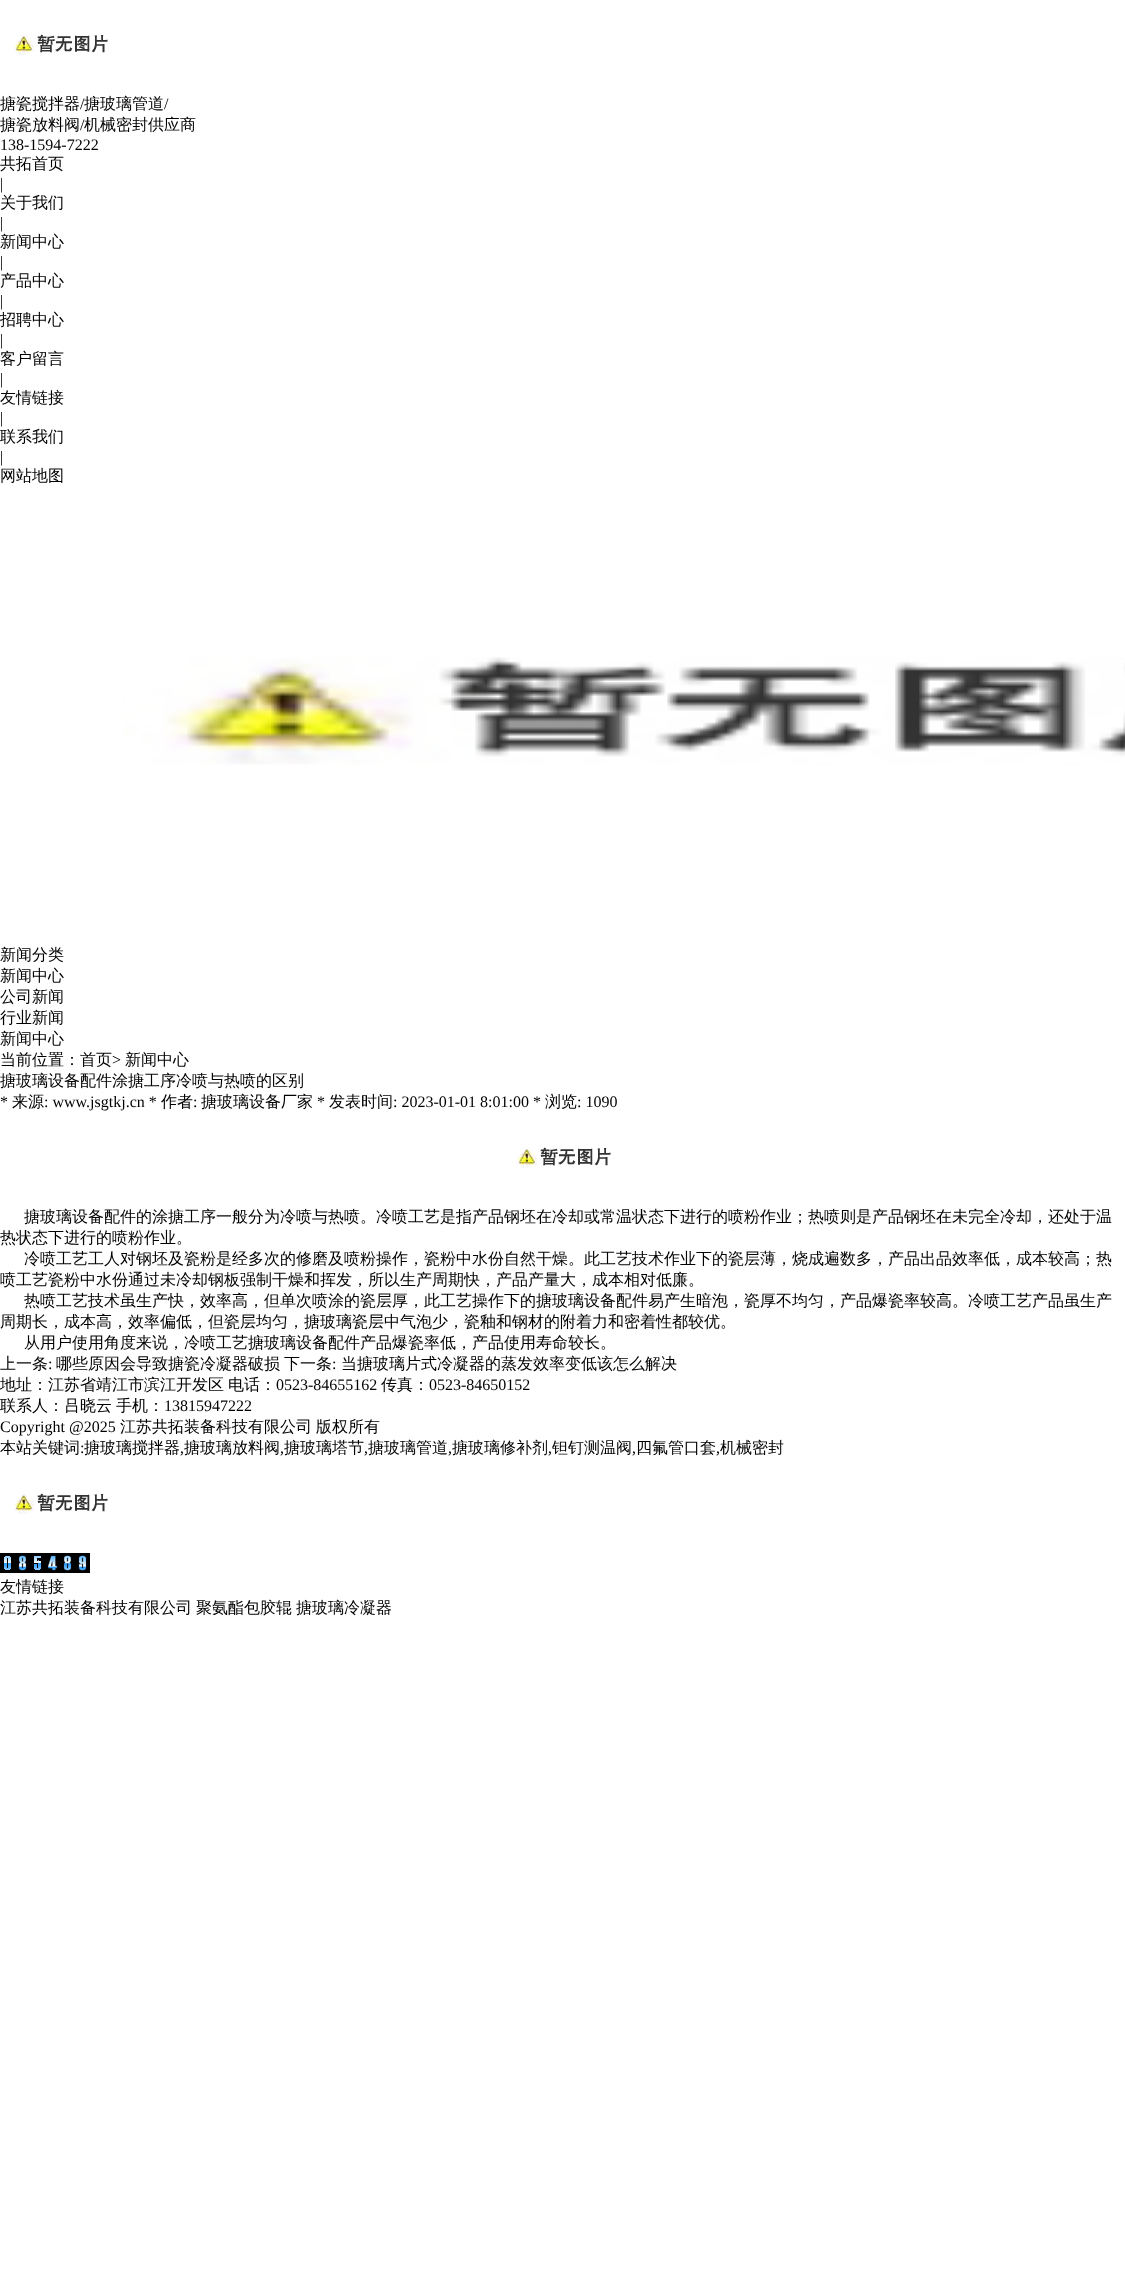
<svg xmlns="http://www.w3.org/2000/svg" width="1125" height="2292" viewBox="0 0 1125 2292">
  <rect width="100%" height="100%" fill="rgb(255,255,255)"/>
  <image x="10" y="34" width="98" height="21" href="pic1.png"/>
  <text x="0" y="109" font-family="WenQuanYi Zen Hei" font-size="16" font-weight="500" fill="rgb(0,0,0)">搪瓷搅拌器</text>
  <text x="80" y="109" font-family="Liberation Serif" font-size="16" fill="rgb(0,0,0)">/</text>
  <text x="84" y="109" font-family="WenQuanYi Zen Hei" font-size="16" font-weight="500" fill="rgb(0,0,0)">搪玻璃管道</text>
  <text x="164" y="109" font-family="Liberation Serif" font-size="16" fill="rgb(0,0,0)">/</text>
  <text x="0" y="130" font-family="WenQuanYi Zen Hei" font-size="16" font-weight="500" fill="rgb(0,0,0)">搪瓷放料阀</text>
  <text x="80" y="130" font-family="Liberation Serif" font-size="16" fill="rgb(0,0,0)">/</text>
  <text x="84" y="130" font-family="WenQuanYi Zen Hei" font-size="16" font-weight="500" fill="rgb(0,0,0)">机械密封供应商</text>
  <text x="0" y="150" font-family="Liberation Serif" font-size="16" fill="rgb(0,0,0)">138-1594-7222</text>
  <text x="0" y="169" font-family="WenQuanYi Zen Hei" font-size="16" font-weight="500" fill="rgb(0,0,0)">共拓首页</text>
  <text x="0" y="189" font-family="Liberation Serif" font-size="16" fill="rgb(0,0,0)">|</text>
  <text x="0" y="208" font-family="WenQuanYi Zen Hei" font-size="16" font-weight="500" fill="rgb(0,0,0)">关于我们</text>
  <text x="0" y="228" font-family="Liberation Serif" font-size="16" fill="rgb(0,0,0)">|</text>
  <text x="0" y="247" font-family="WenQuanYi Zen Hei" font-size="16" font-weight="500" fill="rgb(0,0,0)">新闻中心</text>
  <text x="0" y="267" font-family="Liberation Serif" font-size="16" fill="rgb(0,0,0)">|</text>
  <text x="0" y="286" font-family="WenQuanYi Zen Hei" font-size="16" font-weight="500" fill="rgb(0,0,0)">产品中心</text>
  <text x="0" y="306" font-family="Liberation Serif" font-size="16" fill="rgb(0,0,0)">|</text>
  <text x="0" y="325" font-family="WenQuanYi Zen Hei" font-size="16" font-weight="500" fill="rgb(0,0,0)">招聘中心</text>
  <text x="0" y="345" font-family="Liberation Serif" font-size="16" fill="rgb(0,0,0)">|</text>
  <text x="0" y="364" font-family="WenQuanYi Zen Hei" font-size="16" font-weight="500" fill="rgb(0,0,0)">客户留言</text>
  <text x="0" y="384" font-family="Liberation Serif" font-size="16" fill="rgb(0,0,0)">|</text>
  <text x="0" y="403" font-family="WenQuanYi Zen Hei" font-size="16" font-weight="500" fill="rgb(0,0,0)">友情链接</text>
  <text x="0" y="423" font-family="Liberation Serif" font-size="16" fill="rgb(0,0,0)">|</text>
  <text x="0" y="442" font-family="WenQuanYi Zen Hei" font-size="16" font-weight="500" fill="rgb(0,0,0)">联系我们</text>
  <text x="0" y="462" font-family="Liberation Serif" font-size="16" fill="rgb(0,0,0)">|</text>
  <text x="0" y="481" font-family="WenQuanYi Zen Hei" font-size="16" font-weight="500" fill="rgb(0,0,0)">网站地图</text>
  <image x="123" y="657" width="1002" height="108" href="pic2.png"/>
  <g font-family="WenQuanYi Zen Hei" font-size="16" font-weight="500" fill="rgb(0,0,0)">
    <text>
      <tspan x="0" y="960">新闻分类</tspan>
      <tspan x="0" y="981">新闻中心</tspan>
      <tspan x="0" y="1002">公司新闻</tspan>
      <tspan x="0" y="1023">行业新闻</tspan>
      <tspan x="0" y="1044">新闻中心</tspan>
      <tspan x="0" y="1065">当前位置：首页</tspan>
    </text>
  </g>
  <text x="112" y="1065" font-family="Liberation Serif" font-size="16" fill="rgb(0,0,0)">&gt;</text>
  <g font-family="WenQuanYi Zen Hei" font-size="16" font-weight="500" fill="rgb(0,0,0)">
    <text x="125" y="1065">新闻中心</text>
    <text x="0" y="1086">搪玻璃设备配件涂搪工序冷喷与热喷的区别</text>
  </g>
  <text x="0" y="1107" font-family="Liberation Serif" font-size="16" fill="rgb(0,0,0)">*</text>
  <text x="12" y="1107" font-family="WenQuanYi Zen Hei" font-size="16" font-weight="500" fill="rgb(0,0,0)">来源</text>
  <text x="44" y="1107" font-family="Liberation Serif" font-size="16" fill="rgb(0,0,0)">: www.jsgtkj.cn *</text>
  <text x="161" y="1107" font-family="WenQuanYi Zen Hei" font-size="16" font-weight="500" fill="rgb(0,0,0)">作者</text>
  <text x="193" y="1107" font-family="Liberation Serif" font-size="16" fill="rgb(0,0,0)">:</text>
  <text x="201" y="1107" font-family="WenQuanYi Zen Hei" font-size="16" font-weight="500" fill="rgb(0,0,0)">搪玻璃设备厂家</text>
  <text x="317" y="1107" font-family="Liberation Serif" font-size="16" fill="rgb(0,0,0)">*</text>
  <text x="329" y="1107" font-family="WenQuanYi Zen Hei" font-size="16" font-weight="500" fill="rgb(0,0,0)">发表时间</text>
  <text x="393" y="1107" font-family="Liberation Serif" font-size="16" fill="rgb(0,0,0)">: 2023-01-01 8:01:00 *</text>
  <text x="545" y="1107" font-family="WenQuanYi Zen Hei" font-size="16" font-weight="500" fill="rgb(0,0,0)">浏览</text>
  <text x="577" y="1107" font-family="Liberation Serif" font-size="16" fill="rgb(0,0,0)">: 1090</text>
  <image x="513" y="1147" width="98" height="21" href="pic1.png"/>
  <g font-family="WenQuanYi Zen Hei" font-size="16" font-weight="500" fill="rgb(0,0,0)">
    <text x="24" y="1222">搪玻璃设备配件的涂搪工序一般分为冷喷与热喷。冷喷工艺是指产品钢坯在冷却或常温状态下进行的喷粉作业；热喷则是产品钢坯在未完全冷却，还处于温</text>
    <text x="0" y="1243">热状态下进行的喷粉作业。</text>
    <text x="24" y="1264">冷喷工艺工人对钢坯及瓷粉是经多次的修磨及喷粉操作，瓷粉中水份自然干燥。此工艺技术作业下的瓷层薄，烧成遍数多，产品出品效率低，成本较高；热</text>
    <text x="0" y="1285">喷工艺瓷粉中水份通过未冷却钢板强制干燥和挥发，所以生产周期快，产品产量大，成本相对低廉。</text>
    <text x="24" y="1306">热喷工艺技术虽生产快，效率高，但单次喷涂的瓷层厚，此工艺操作下的搪玻璃设备配件易产生暗泡，瓷厚不均匀，产品爆瓷率较高。冷喷工艺产品虽生产</text>
    <text x="0" y="1327">周期长，成本高，效率偏低，但瓷层均匀，搪玻璃瓷层中气泡少，瓷釉和钢材的附着力和密着性都较优。</text>
    <text x="24" y="1348">从用户使用角度来说，冷喷工艺搪玻璃设备配件产品爆瓷率低，产品使用寿命较长。</text>
    <text x="0" y="1369">上一条</text>
  </g>
  <text x="48" y="1369" font-family="Liberation Serif" font-size="16" fill="rgb(0,0,0)">:</text>
  <g font-family="WenQuanYi Zen Hei" font-size="16" font-weight="500" fill="rgb(0,0,0)">
    <text x="56" y="1369">哪些原因会导致搪瓷冷凝器破损</text>
    <text x="284" y="1369">下一条</text>
  </g>
  <text x="332" y="1369" font-family="Liberation Serif" font-size="16" fill="rgb(0,0,0)">:</text>
  <g font-family="WenQuanYi Zen Hei" font-size="16" font-weight="500" fill="rgb(0,0,0)">
    <text x="341" y="1369">当搪玻璃片式冷凝器的蒸发效率变低该怎么解决</text>
    <text x="0" y="1390">地址：江苏省靖江市滨江开发区</text>
    <text x="228" y="1390">电话：</text>
  </g>
  <text x="276" y="1390" font-family="Liberation Serif" font-size="16" fill="rgb(0,0,0)">0523-84655162</text>
  <text x="381" y="1390" font-family="WenQuanYi Zen Hei" font-size="16" font-weight="500" fill="rgb(0,0,0)">传真：</text>
  <text x="429" y="1390" font-family="Liberation Serif" font-size="16" fill="rgb(0,0,0)">0523-84650152</text>
  <g font-family="WenQuanYi Zen Hei" font-size="16" font-weight="500" fill="rgb(0,0,0)">
    <text x="0" y="1411">联系人：吕晓云</text>
    <text x="116" y="1411">手机：</text>
  </g>
  <g font-family="Liberation Serif" font-size="16" fill="rgb(0,0,0)">
    <text x="164" y="1411">13815947222</text>
    <text x="0" y="1432">Copyright @2025</text>
  </g>
  <g font-family="WenQuanYi Zen Hei" font-size="16" font-weight="500" fill="rgb(0,0,0)">
    <text x="120" y="1432">江苏共拓装备科技有限公司</text>
    <text x="316" y="1432">版权所有</text>
    <text x="0" y="1453">本站关键词</text>
  </g>
  <text x="80" y="1453" font-family="Liberation Serif" font-size="16" fill="rgb(0,0,0)">:</text>
  <text x="84" y="1453" font-family="WenQuanYi Zen Hei" font-size="16" font-weight="500" fill="rgb(0,0,0)">搪玻璃搅拌器</text>
  <text x="180" y="1453" font-family="Liberation Serif" font-size="16" fill="rgb(0,0,0)">,</text>
  <text x="184" y="1453" font-family="WenQuanYi Zen Hei" font-size="16" font-weight="500" fill="rgb(0,0,0)">搪玻璃放料阀</text>
  <text x="280" y="1453" font-family="Liberation Serif" font-size="16" fill="rgb(0,0,0)">,</text>
  <text x="284" y="1453" font-family="WenQuanYi Zen Hei" font-size="16" font-weight="500" fill="rgb(0,0,0)">搪玻璃塔节</text>
  <text x="364" y="1453" font-family="Liberation Serif" font-size="16" fill="rgb(0,0,0)">,</text>
  <text x="368" y="1453" font-family="WenQuanYi Zen Hei" font-size="16" font-weight="500" fill="rgb(0,0,0)">搪玻璃管道</text>
  <text x="448" y="1453" font-family="Liberation Serif" font-size="16" fill="rgb(0,0,0)">,</text>
  <text x="452" y="1453" font-family="WenQuanYi Zen Hei" font-size="16" font-weight="500" fill="rgb(0,0,0)">搪玻璃修补剂</text>
  <text x="548" y="1453" font-family="Liberation Serif" font-size="16" fill="rgb(0,0,0)">,</text>
  <text x="552" y="1453" font-family="WenQuanYi Zen Hei" font-size="16" font-weight="500" fill="rgb(0,0,0)">钽钉测温阀</text>
  <text x="632" y="1453" font-family="Liberation Serif" font-size="16" fill="rgb(0,0,0)">,</text>
  <text x="636" y="1453" font-family="WenQuanYi Zen Hei" font-size="16" font-weight="500" fill="rgb(0,0,0)">四氟管口套</text>
  <text x="716" y="1453" font-family="Liberation Serif" font-size="16" fill="rgb(0,0,0)">,</text>
  <text x="720" y="1453" font-family="WenQuanYi Zen Hei" font-size="16" font-weight="500" fill="rgb(0,0,0)">机械密封</text>
  <image x="10" y="1493" width="98" height="21" href="pic1.png"/>
  <image x="0" y="1553" width="15" height="20" href="pic3.png"/>
  <image x="15" y="1553" width="15" height="20" href="pic4.png"/>
  <image x="30" y="1553" width="15" height="20" href="pic5.png"/>
  <image x="45" y="1553" width="15" height="20" href="pic6.png"/>
  <image x="60" y="1553" width="15" height="20" href="pic7.png"/>
  <image x="75" y="1553" width="15" height="20" href="pic8.png"/>
  <g font-family="WenQuanYi Zen Hei" font-size="16" font-weight="500" fill="rgb(0,0,0)">
    <text>
      <tspan x="0" y="1592">友情链接</tspan>
      <tspan x="0" y="1613">江苏共拓装备科技有限公司</tspan>
    </text>
    <text x="196" y="1613">聚氨酯包胶辊</text>
    <text x="296" y="1613">搪玻璃冷凝器</text>
  </g>
</svg>
